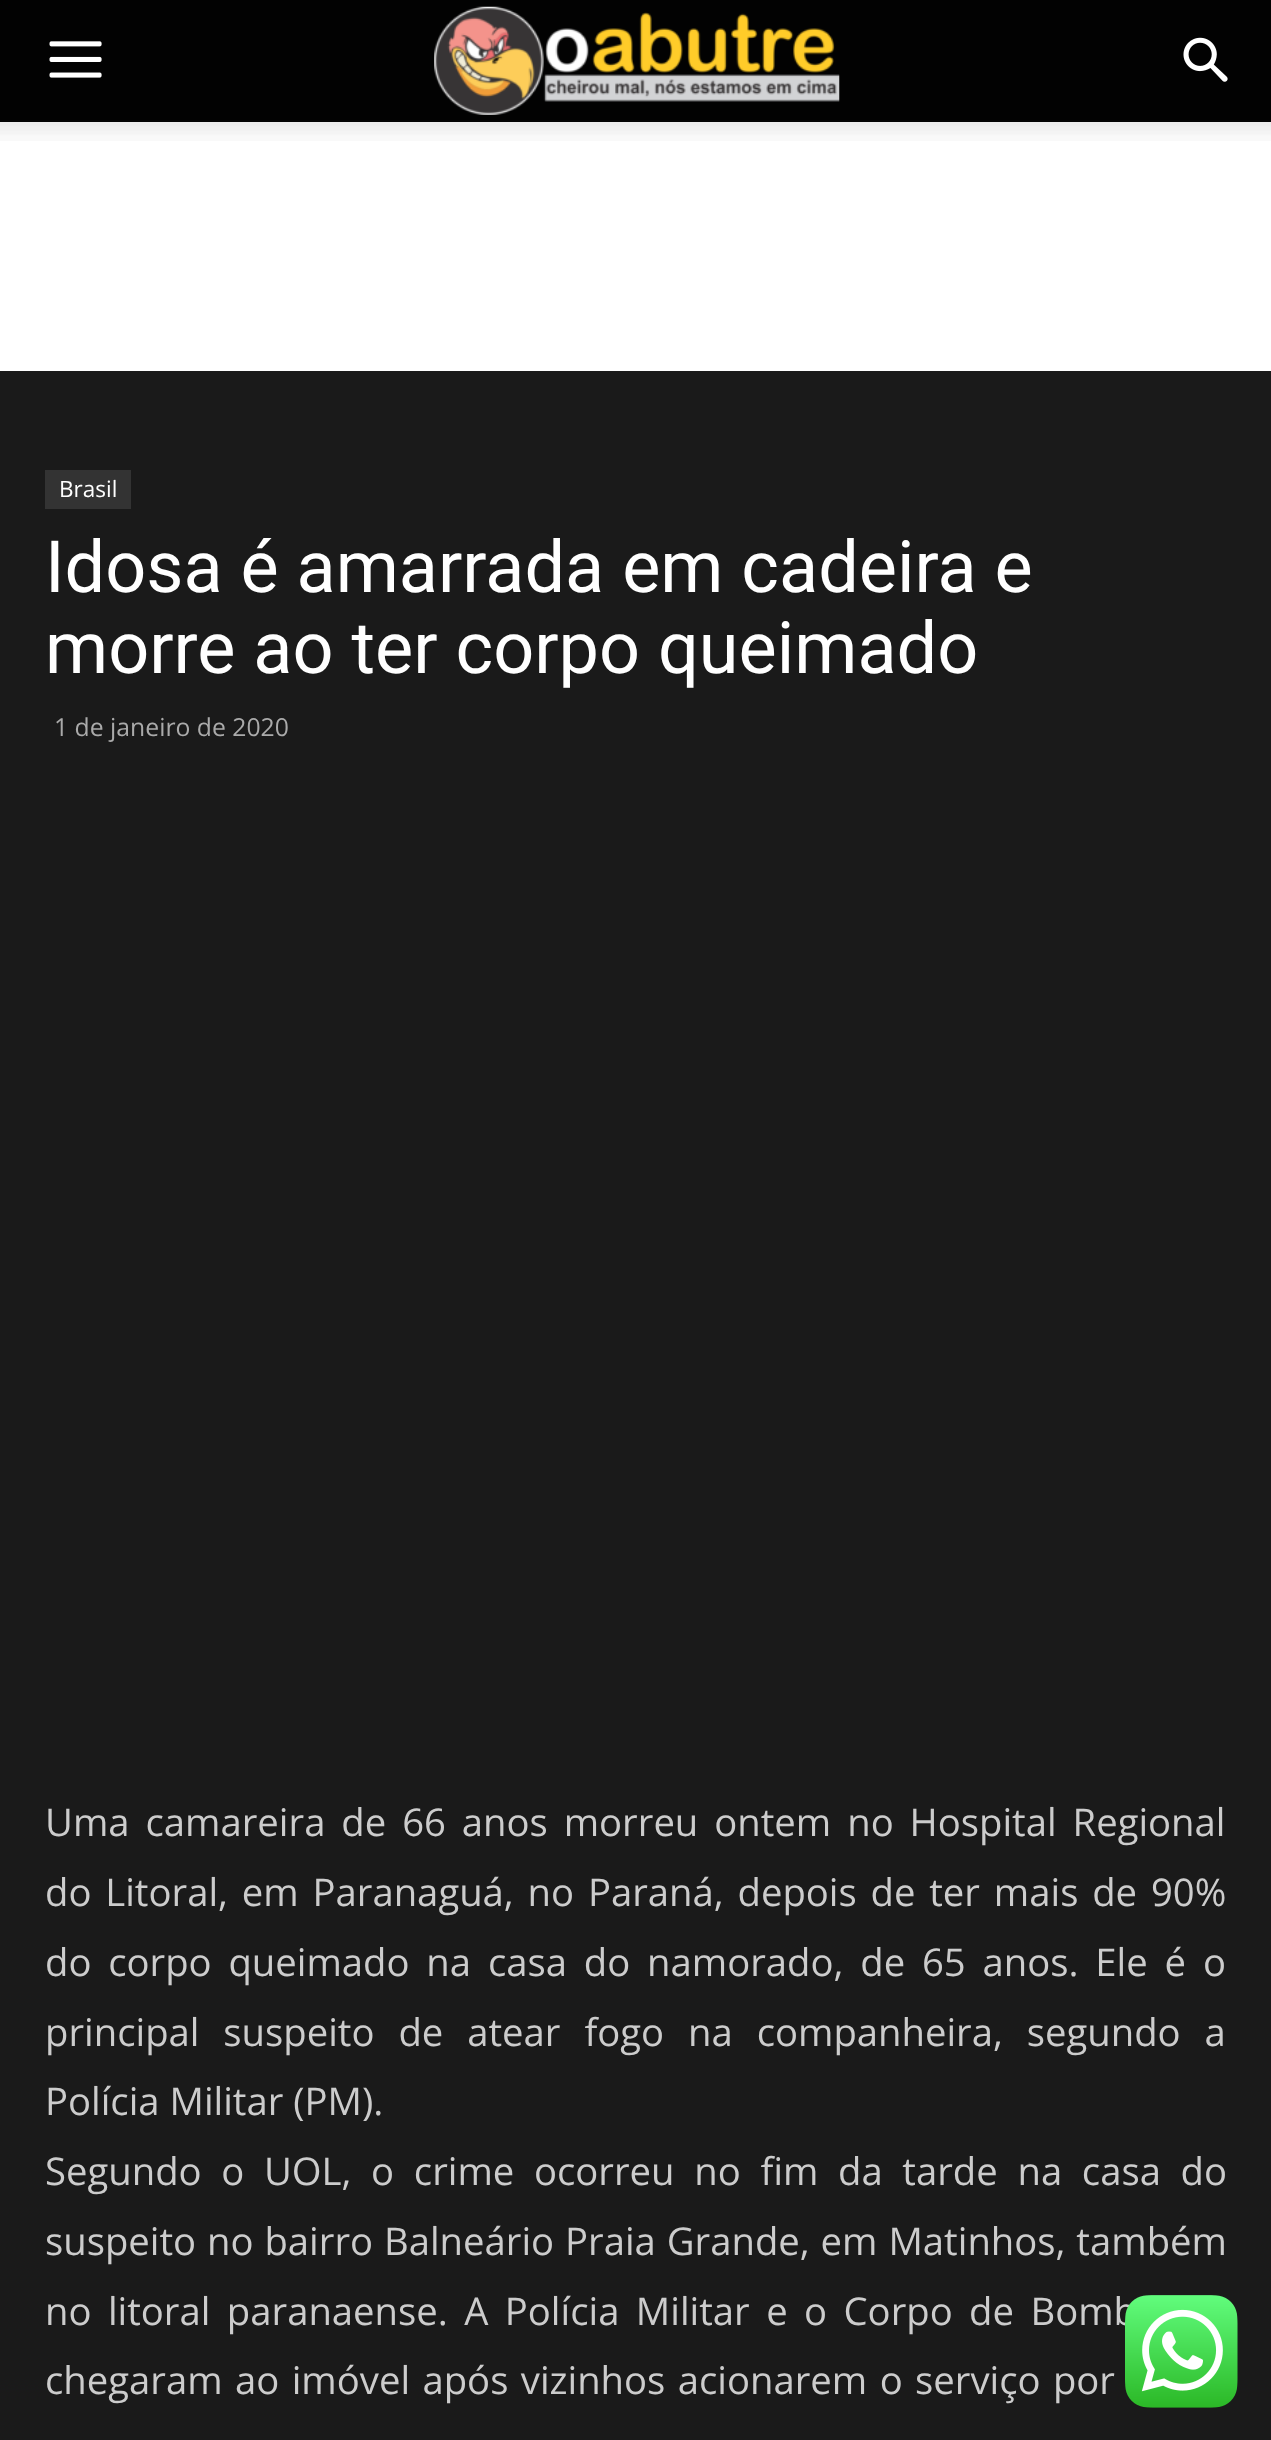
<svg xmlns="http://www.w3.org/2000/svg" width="1271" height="2440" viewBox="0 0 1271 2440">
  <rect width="100%" height="100%" fill="rgb(26,26,26)"/>
  <rect x="0" y="0" width="1271" height="122" fill="rgb(2,2,2)"/>
  <image x="49" y="41" width="53" height="37" href="pic1.png"/>
  <image x="434" y="6" width="406" height="109" href="pic2.png"/>
  <image x="1183" y="37" width="45" height="45" href="pic3.png"/>
  <rect x="0" y="122" width="1271" height="249" fill="rgb(255,255,255)"/>
  <image x="0" y="122" width="1271" height="19" href="pic4.png"/>
  <rect x="45" y="470" width="86" height="39" fill="rgb(51,51,51)"/>
  <text x="59" y="497" font-family="Open Sans" font-size="22.5" fill="rgb(255,255,255)">Brasil</text>
  <g font-family="Roboto" font-size="72" fill="rgb(255,255,255)">
    <text>
      <tspan x="45" y="592">Idosa é amarrada em cadeira e</tspan>
      <tspan x="45" y="673">morre ao ter corpo queimado</tspan>
    </text>
  </g>
  <text x="54" y="736" font-family="Open Sans" font-size="24.75" fill="rgb(170,170,170)">1 de janeiro de 2020</text>
  <g font-family="Open Sans" font-size="38.25" fill="rgb(204,204,204)">
    <text>
      <tspan x="45" y="1836" word-spacing="6">Uma camareira de 66 anos morreu ontem no Hospital Regional</tspan>
      <tspan x="45" y="1906" word-spacing="3.9">do Litoral, em Paranaguá, no Paraná, depois de ter mais de 90%</tspan>
      <tspan x="45" y="1976" word-spacing="6.9">do corpo queimado na casa do namorado, de 65 anos. Ele é o</tspan>
      <tspan x="45" y="2046" word-spacing="14">principal suspeito de atear fogo na companheira, segundo a</tspan>
      <tspan x="45" y="2115">Polícia Militar (PM).</tspan>
      <tspan x="45" y="2185" word-spacing="9.75">Segundo o UOL, o crime ocorreu no fim da tarde na casa do</tspan>
      <tspan x="45" y="2255" word-spacing="1">suspeito no bairro Balneário Praia Grande, em Matinhos, também</tspan>
      <tspan x="45" y="2325" word-spacing="6.5">no litoral paranaense. A Polícia Militar e o Corpo de Bomb</tspan>
      <tspan x="45" y="2394" word-spacing="2.5">chegaram ao imóvel após vizinhos acionarem o serviço por</tspan>
    </text>
  </g>
  <image x="1125" y="2295" width="113" height="113" href="pic5.png"/>
</svg>
